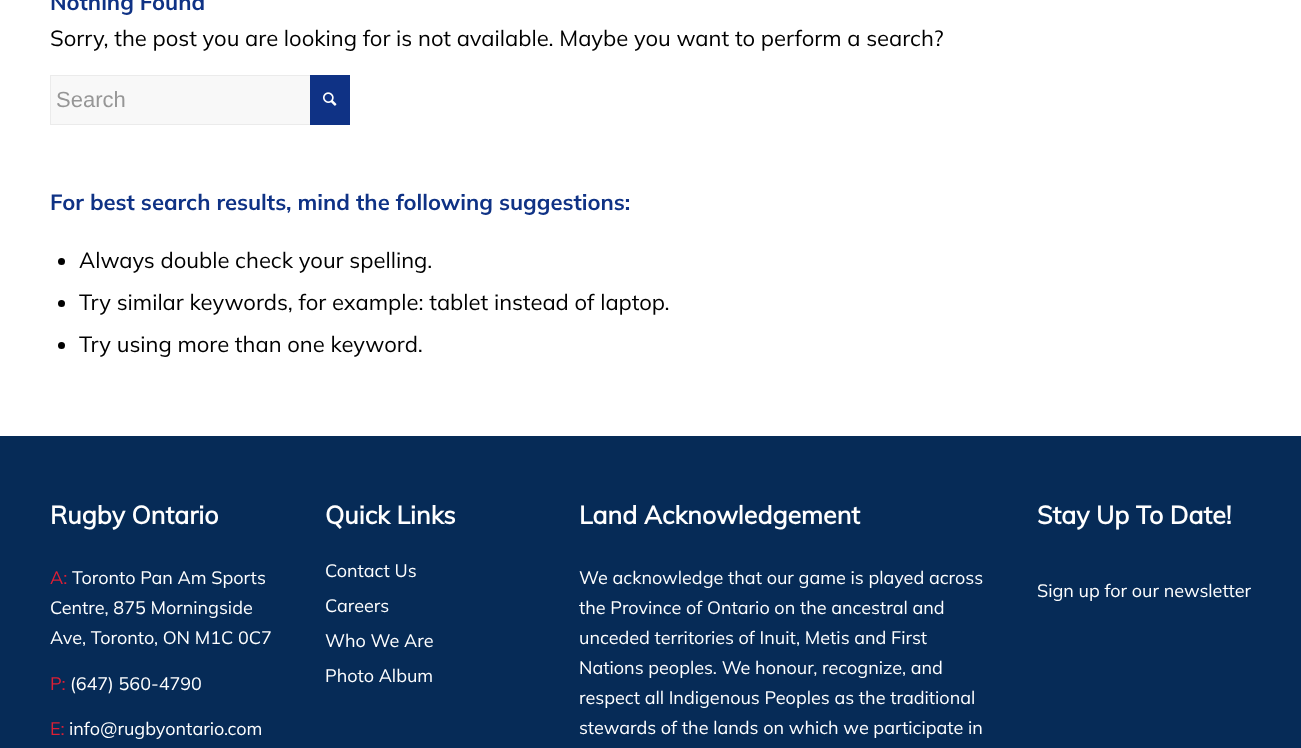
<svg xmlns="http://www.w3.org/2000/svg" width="1301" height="748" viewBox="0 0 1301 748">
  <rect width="100%" height="100%" fill="rgb(255,255,255)"/>
  <text x="50" y="10" font-family="Mulish" font-size="22" font-weight="bold" fill="rgb(15,50,133)">Nothing Found</text>
  <text x="50" y="46" font-family="Mulish" font-size="22" fill="rgb(0,0,0)">Sorry, the post you are looking for is not available. Maybe you want to perform a search?</text>
  <rect x="51" y="76" width="259" height="48" fill="rgb(248,248,248)"/>
  <rect x="50.5" y="75.5" width="299" height="49" fill="none" stroke="rgb(235,235,235)"/>
  <text x="56" y="107" font-family="Liberation Sans" font-size="22" fill="rgb(150,150,150)">Search</text>
  <rect x="310" y="75" width="40" height="50" fill="rgb(15,50,133)"/>
  <image x="323" y="92" width="14" height="14" href="pic1.png"/>
  <text x="50" y="210" font-family="Mulish" font-size="22" font-weight="bold" fill="rgb(15,50,133)">For best search results, mind the following suggestions:</text>
  <circle cx="61.5" cy="261.5" r="3.5" fill="rgb(0,0,0)"/>
  <text x="79" y="268" font-family="Mulish" font-size="22" fill="rgb(0,0,0)">Always double check your spelling.</text>
  <circle cx="61.5" cy="303.5" r="3.5" fill="rgb(0,0,0)"/>
  <text x="79" y="310" font-family="Mulish" font-size="22" fill="rgb(0,0,0)">Try similar keywords, for example: tablet instead of laptop.</text>
  <circle cx="61.5" cy="345.5" r="3.5" fill="rgb(0,0,0)"/>
  <text x="79" y="352" font-family="Mulish" font-size="22" fill="rgb(0,0,0)">Try using more than one keyword.</text>
  <rect x="0" y="436" width="1301" height="312" fill="rgb(6,43,87)"/>
  <text x="50" y="524" font-family="Muli" font-size="25" font-weight="bold" fill="rgb(255,255,255)">Rugby Ontario</text>
  <text x="50" y="584" font-family="Mulish" font-size="18" fill="rgb(220,31,53)">A:</text>
  <g font-family="Mulish" font-size="18" fill="rgb(255,255,255)">
    <text x="72" y="584">Toronto Pan Am Sports</text>
    <text>
      <tspan x="50" y="614">Centre, 875 Morningside</tspan>
      <tspan x="50" y="644">Ave, Toronto, ON M1C 0C7</tspan>
    </text>
  </g>
  <text x="50" y="690" font-family="Mulish" font-size="18" fill="rgb(220,31,53)">P:</text>
  <text x="70" y="690" font-family="Mulish" font-size="18" fill="rgb(255,255,255)">(647) 560-4790</text>
  <text x="50" y="735" font-family="Mulish" font-size="18" fill="rgb(220,31,53)">E:</text>
  <text x="69" y="735" font-family="Mulish" font-size="18" fill="rgb(255,255,255)">info@rugbyontario.com</text>
  <text x="325" y="524" font-family="Muli" font-size="25" font-weight="bold" fill="rgb(255,255,255)">Quick Links</text>
  <g font-family="Mulish" font-size="18" fill="rgb(255,255,255)">
    <text>
      <tspan x="325" y="577">Contact Us</tspan>
      <tspan x="325" y="612">Careers</tspan>
      <tspan x="325" y="647">Who We Are</tspan>
      <tspan x="325" y="682">Photo Album</tspan>
    </text>
  </g>
  <text x="579" y="524" font-family="Muli" font-size="25" font-weight="bold" fill="rgb(255,255,255)">Land Acknowledgement</text>
  <g font-family="Mulish" font-size="18" fill="rgb(255,255,255)">
    <text>
      <tspan x="579" y="584">We acknowledge that our game is played across</tspan>
      <tspan x="579" y="614">the Province of Ontario on the ancestral and</tspan>
      <tspan x="579" y="644">unceded territories of Inuit, Metis and First</tspan>
      <tspan x="579" y="674">Nations peoples. We honour, recognize, and</tspan>
      <tspan x="579" y="704">respect all Indigenous Peoples as the traditional</tspan>
      <tspan x="579" y="734">stewards of the lands on which we participate in</tspan>
    </text>
  </g>
  <text x="1037" y="524" font-family="Muli" font-size="25" font-weight="bold" fill="rgb(255,255,255)">Stay Up To Date!</text>
  <text x="1037" y="597" font-family="Mulish" font-size="18" fill="rgb(255,255,255)">Sign up for our newsletter</text>
</svg>
